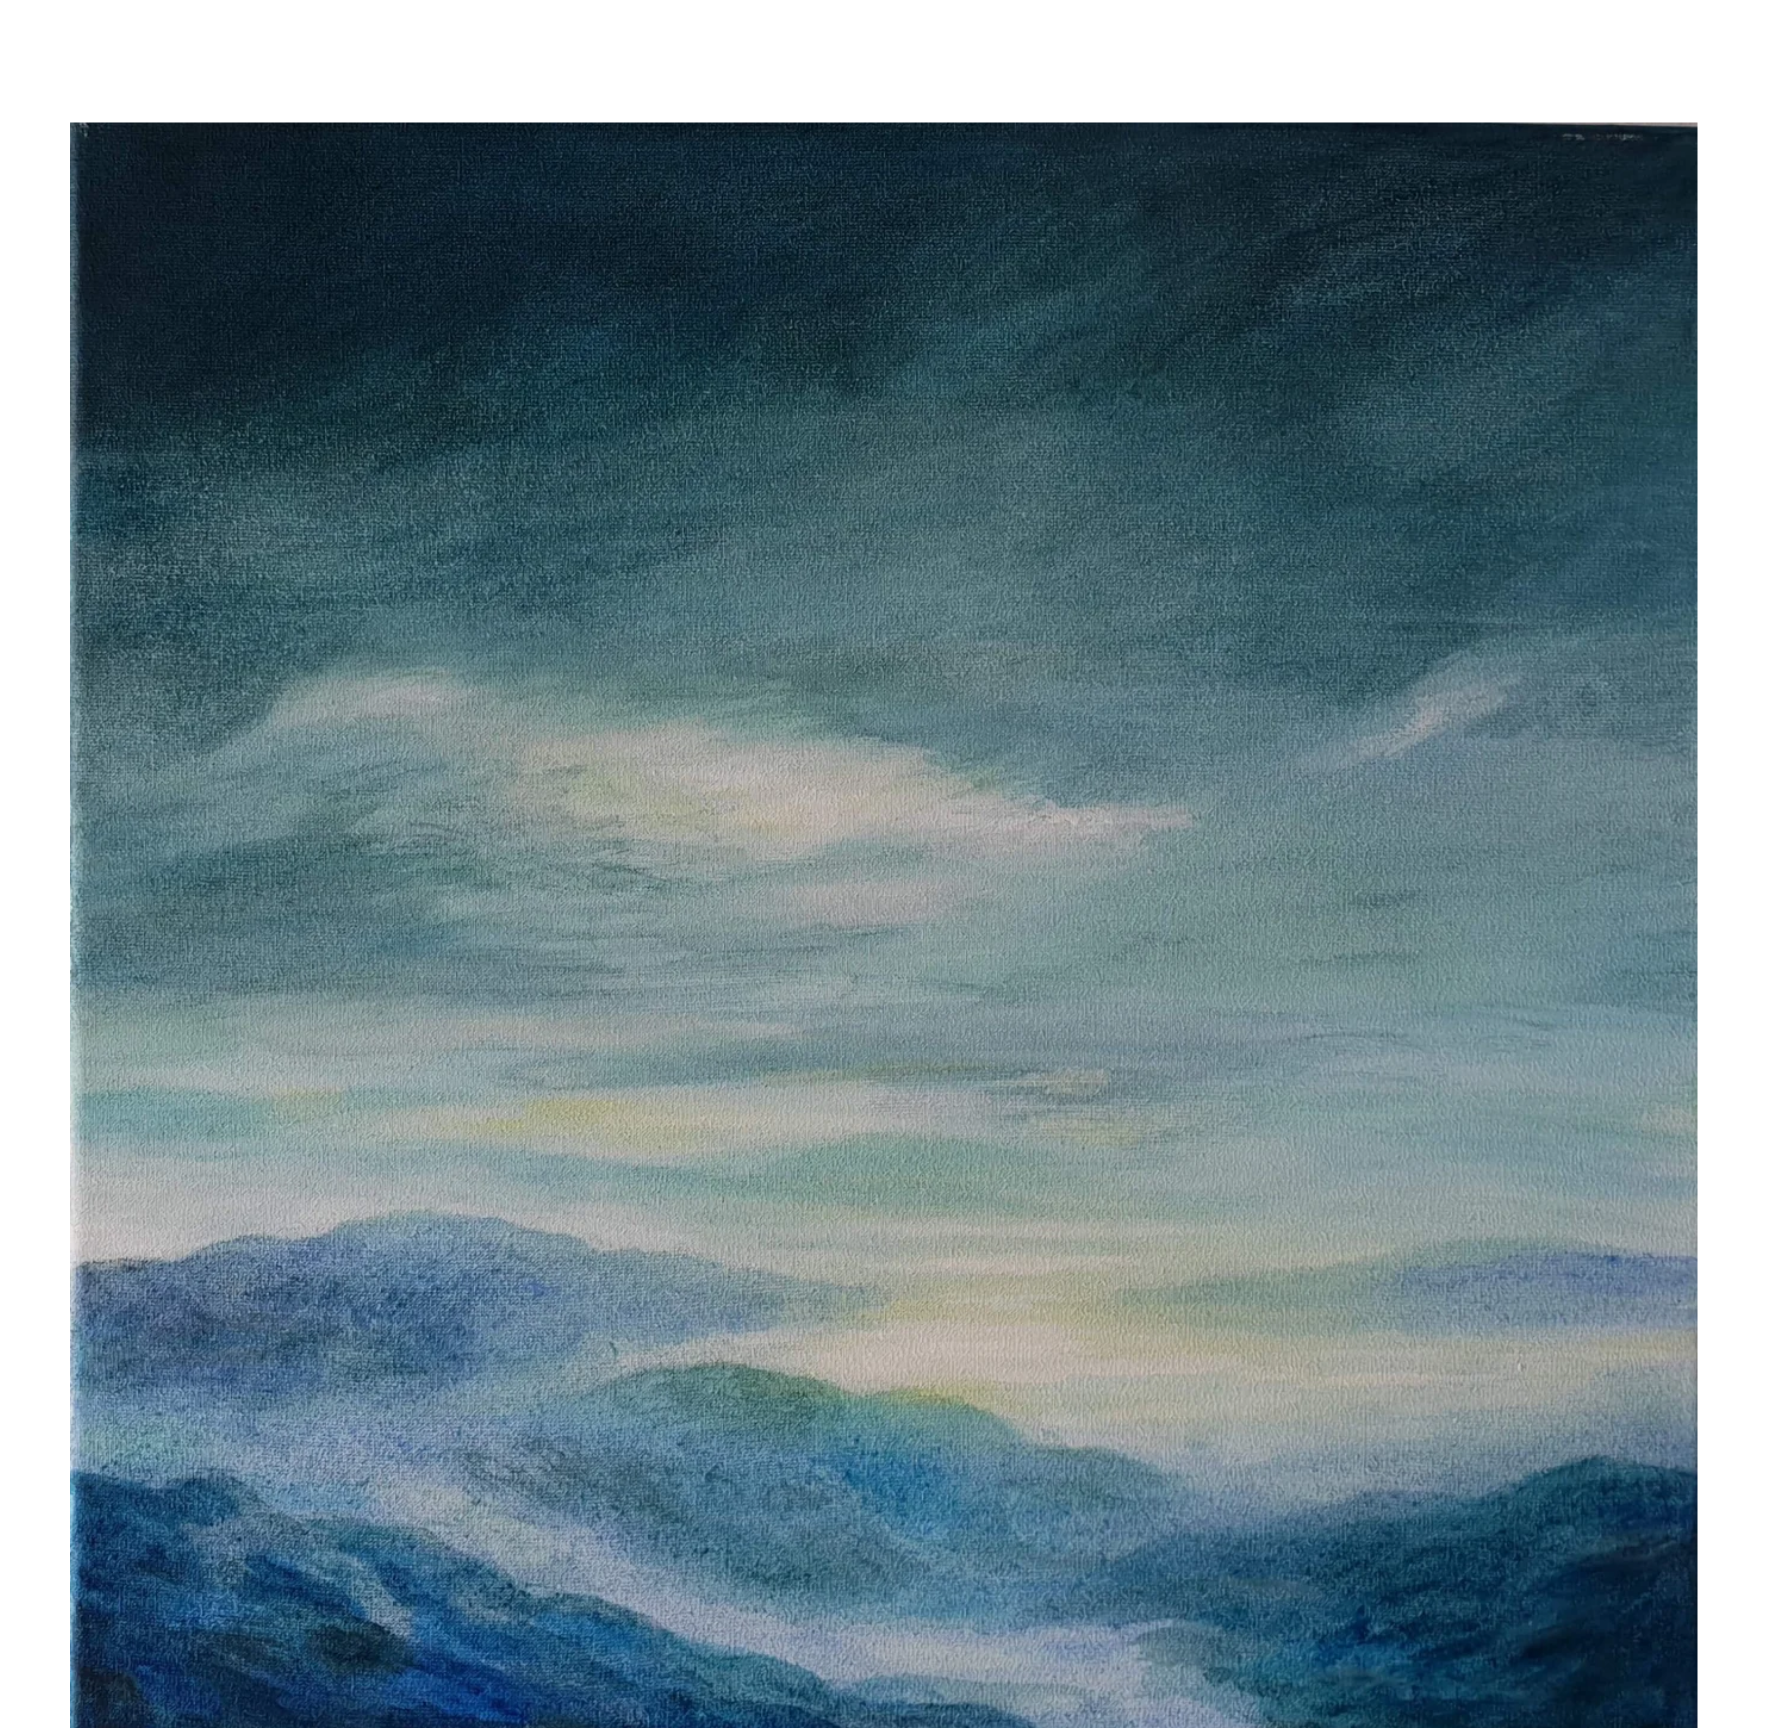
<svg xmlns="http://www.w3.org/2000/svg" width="1766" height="1728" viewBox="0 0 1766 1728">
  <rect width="100%" height="100%" fill="rgb(255,255,255)"/>
  <image x="70" y="122" width="1628" height="1606" href="pic1.png"/>
</svg>
